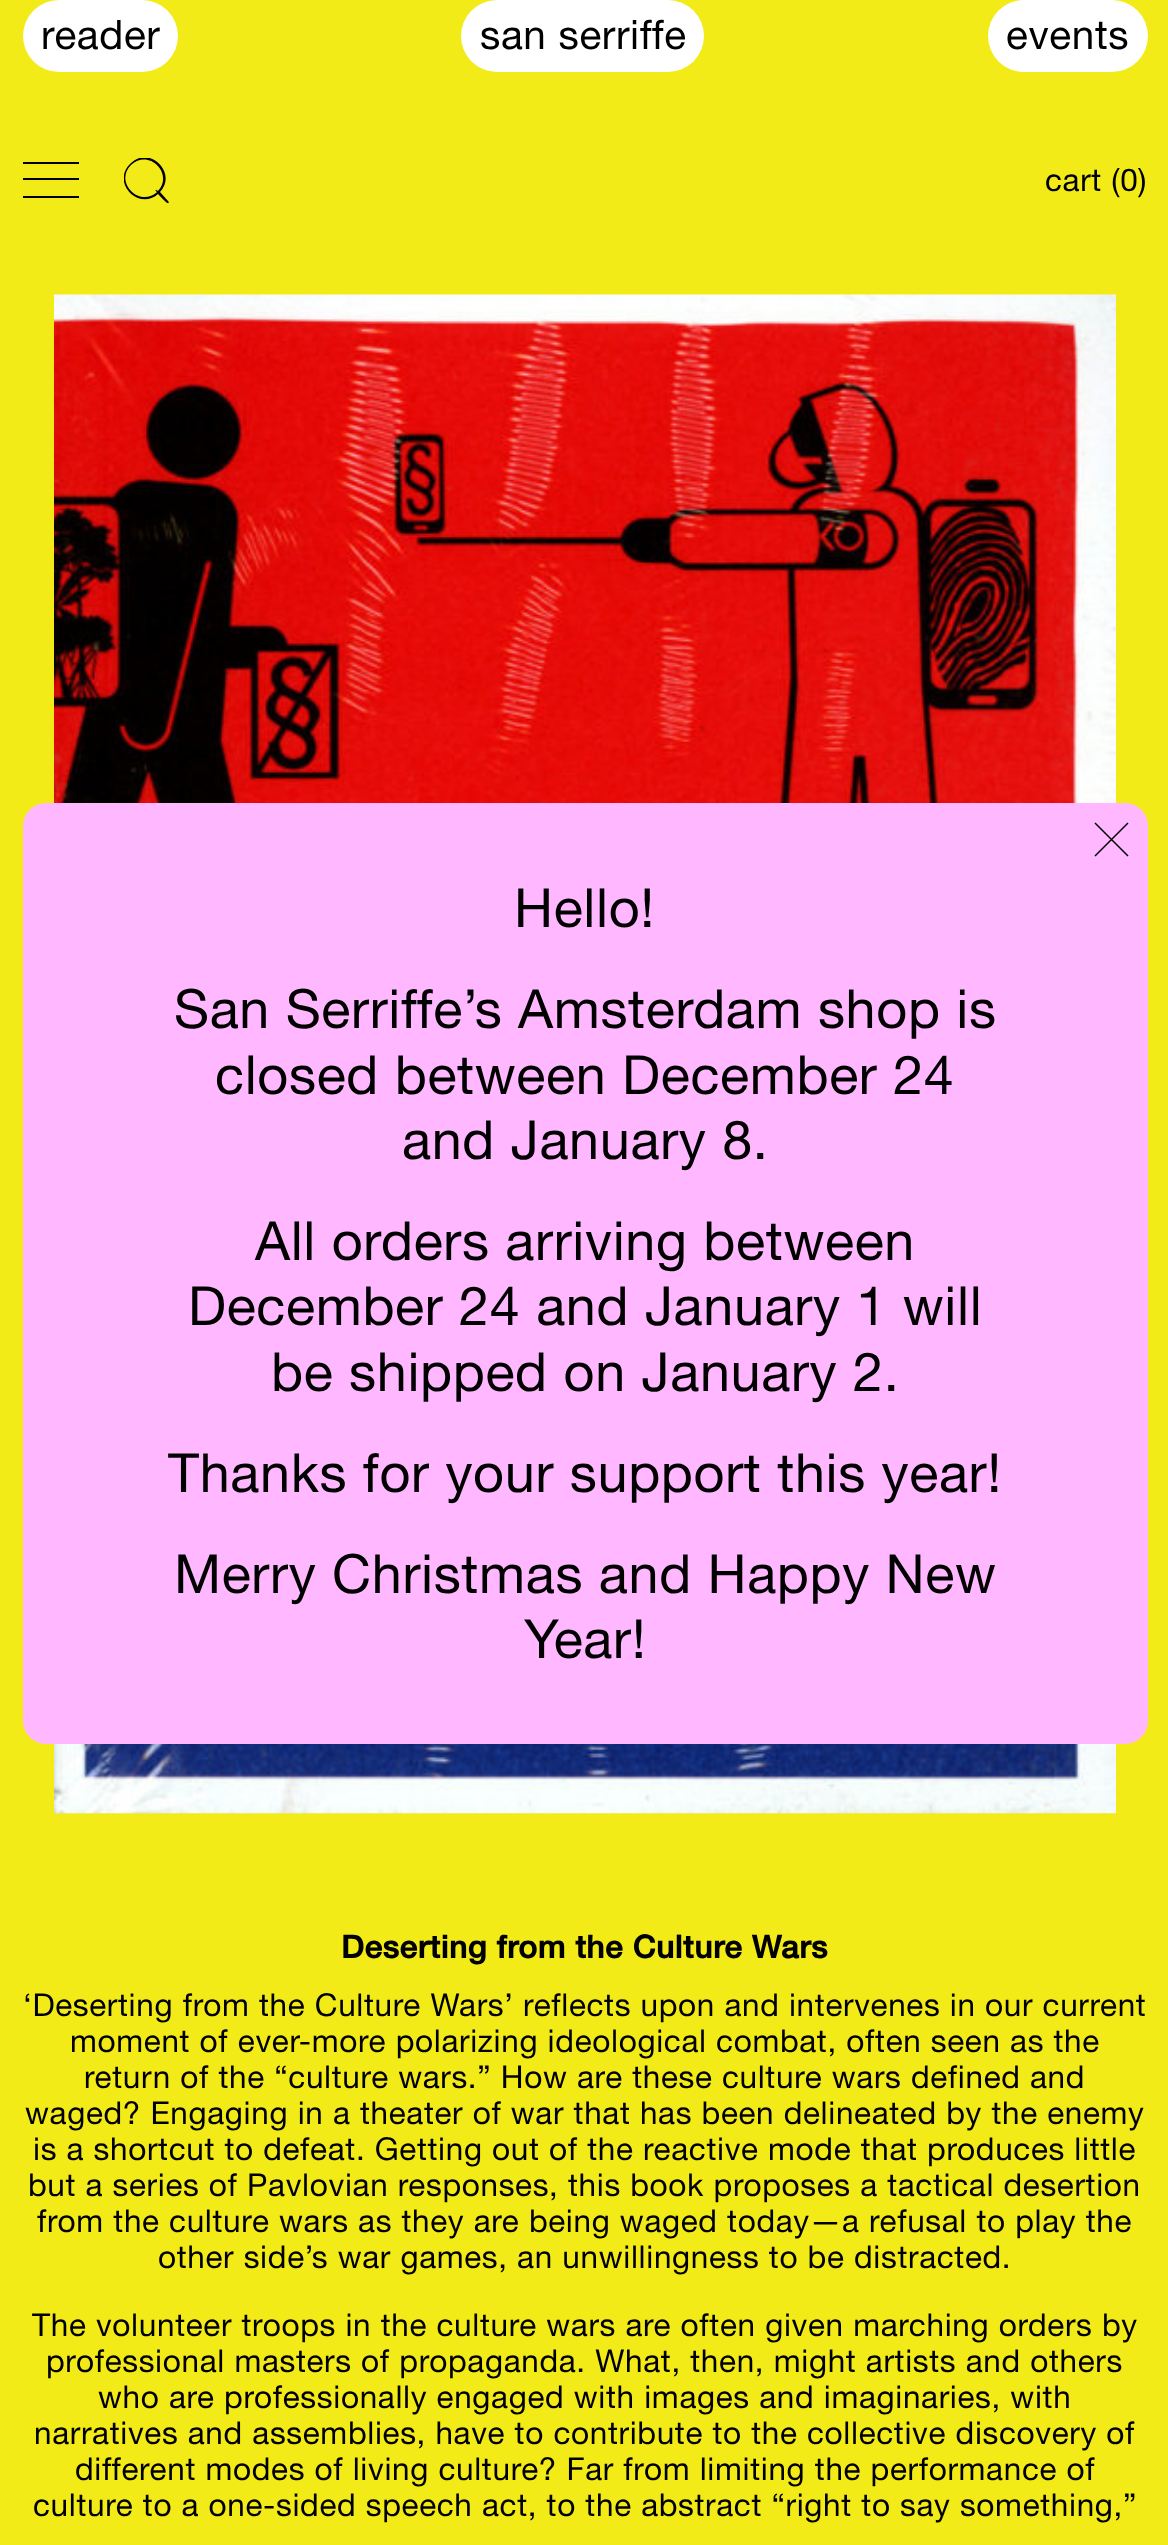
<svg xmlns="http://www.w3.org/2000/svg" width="1168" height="2545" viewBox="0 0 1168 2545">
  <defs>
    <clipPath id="clip1"><rect x="124" y="158" width="45" height="45"/></clipPath>
  </defs>
  <rect width="100%" height="100%" fill="rgb(243,235,23)"/>
  <rect x="23" y="0" width="155" height="72" rx="36" fill="rgb(255,255,255)"/>
  <text x="41" y="49" font-family="Helvetica Neue" font-size="40.5" letter-spacing="0.67" fill="rgb(0,0,0)">reader</text>
  <rect x="461" y="0" width="243" height="72" rx="36" fill="rgb(255,255,255)"/>
  <text x="480" y="49" font-family="Helvetica Neue" font-size="40.5" letter-spacing="0.67" fill="rgb(0,0,0)">san serriffe</text>
  <rect x="988" y="0" width="160" height="72" rx="36" fill="rgb(255,255,255)"/>
  <text x="1006" y="49" font-family="Helvetica Neue" font-size="40.5" letter-spacing="0.67" fill="rgb(0,0,0)">events</text>
  <rect x="23" y="162" width="56" height="2" fill="rgb(0,0,0)"/>
  <rect x="23" y="178" width="56" height="2" fill="rgb(0,0,0)"/>
  <rect x="23" y="196" width="56" height="2" fill="rgb(0,0,0)"/>
  <g clip-path="url(#clip1)">
    <path d="M168 201L160 192C178 173 149 144 130 164C111 183 139 211 158 194C159 195 167 204 168 203C169 203 169 202 168 201ZM156 193C139 207 114 182 131 165C149 148 174 174 158 191C156 189 154 190 157 192Z" fill="rgb(0,0,0)"/>
  </g>
  <text x="1045" y="191" font-family="Helvetica Neue" font-size="31.5" letter-spacing="0.67" fill="rgb(0,0,0)">cart (0)</text>
  <image x="54" y="294" width="1062" height="1520" href="pic1.png"/>
  <rect x="23" y="803" width="1125" height="941" rx="23" fill="rgb(255,184,255)"/>
  <path d="M1095 823L1128 856M1095 856L1128 823" fill="none" stroke="rgb(0,0,0)" stroke-width="1.5"/>
  <g font-family="Helvetica Neue" font-size="54" letter-spacing="0.67" fill="rgb(0,0,0)">
    <text x="514" y="927">Hello!</text>
    <text x="174" y="1028">San Serriffe’s Amsterdam shop is</text>
    <text x="215" y="1094">closed between December 24</text>
    <text x="402" y="1159">and January 8.</text>
    <text x="255" y="1260">All orders arriving between</text>
    <text x="188" y="1325">December 24 and January 1 will</text>
    <text x="271" y="1391">be shipped on January 2.</text>
    <text x="168" y="1492">Thanks for your support this year!</text>
    <text x="174" y="1593">Merry Christmas and Happy New</text>
    <text x="524" y="1658">Year!</text>
  </g>
  <text x="341" y="1958" font-family="Helvetica Neue" font-size="31.5" font-weight="bold" letter-spacing="0.67" fill="rgb(0,0,0)">Deserting from the Culture Wars</text>
  <g font-family="Helvetica Neue" font-size="31.5" letter-spacing="0.67" fill="rgb(0,0,0)">
    <text x="23" y="2016">‘Deserting from the Culture Wars’ reflects upon and intervenes in our current</text>
    <text x="70" y="2052">moment of ever-more polarizing ideological combat, often seen as the</text>
    <text x="84" y="2088">return of the “culture wars.” How are these culture wars defined and</text>
    <text x="25" y="2124">waged? Engaging in a theater of war that has been delineated by the enemy</text>
    <text x="33" y="2160">is a shortcut to defeat. Getting out of the reactive mode that produces little</text>
    <text x="28" y="2196">but a series of Pavlovian responses, this book proposes a tactical desertion</text>
    <text x="37" y="2232">from the culture wars as they are being waged today—a refusal to play the</text>
    <text x="158" y="2268">other side’s war games, an unwillingness to be distracted.</text>
    <text x="32" y="2336">The volunteer troops in the culture wars are often given marching orders by</text>
    <text x="46" y="2372">professional masters of propaganda. What, then, might artists and others</text>
    <text x="98" y="2408">who are professionally engaged with images and imaginaries, with</text>
    <text x="34" y="2444">narratives and assemblies, have to contribute to the collective discovery of</text>
    <text x="75" y="2480">different modes of living culture? Far from limiting the performance of</text>
    <text x="33" y="2516">culture to a one-sided speech act, to the abstract “right to say something,”</text>
  </g>
</svg>
